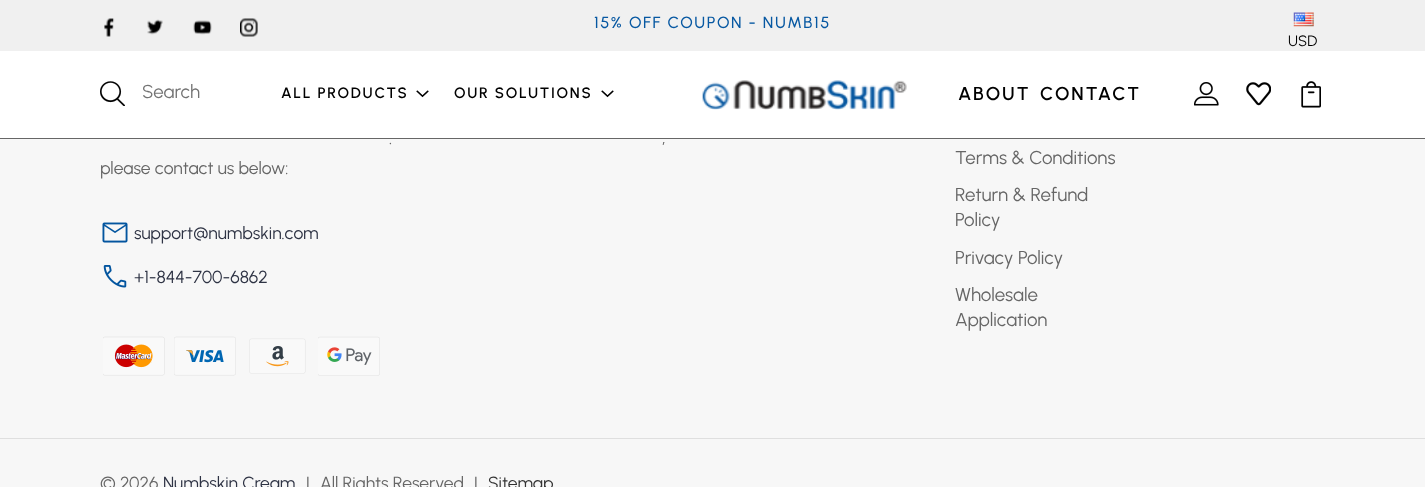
<svg xmlns="http://www.w3.org/2000/svg" width="1425" height="487" viewBox="0 0 1425 487">
  <rect width="100%" height="100%" fill="rgb(247,247,247)"/>
  <rect x="0" y="51" width="1425" height="87" fill="rgb(255,255,255)"/>
  <rect x="0" y="138" width="1425" height="1" fill="rgb(102,102,102)"/>
  <rect x="0" y="0" width="1425" height="51" fill="rgb(240,240,240)"/>
  <image x="104" y="18" width="11" height="19" href="pic1.png"/>
  <image x="147" y="19" width="16" height="16" href="pic2.png"/>
  <image x="193" y="20" width="19" height="15" href="pic3.png"/>
  <image x="240" y="18" width="18" height="19" href="pic4.png"/>
  <text x="594" y="28" font-family="Urbanist" font-size="16.25" font-weight="500" letter-spacing="1.6" fill="rgb(7,88,162)">15% OFF COUPON - NUMB15</text>
  <image x="1293" y="12" width="21" height="15" href="pic5.png"/>
  <text x="1288" y="46" font-family="Urbanist" font-size="15" fill="rgb(0,0,0)">USD</text>
  <image x="100" y="81" width="25" height="25" href="pic6.png"/>
  <text x="142" y="98" font-family="Urbanist" font-size="18.75" fill="rgb(115,115,115)">Search</text>
  <text x="281" y="98" font-family="Urbanist" font-size="15" font-weight="600" letter-spacing="1.75" fill="rgb(0,0,0)">ALL PRODUCTS</text>
  <image x="416" y="90" width="13" height="8" href="pic7.png"/>
  <text x="454" y="98" font-family="Urbanist" font-size="15" font-weight="600" letter-spacing="1.75" fill="rgb(0,0,0)">OUR SOLUTIONS</text>
  <image x="601" y="90" width="13" height="8" href="pic7.png"/>
  <image x="702" y="80" width="205" height="30" href="pic8.png"/>
  <g font-family="Urbanist" font-size="18.75" font-weight="600" letter-spacing="2" fill="rgb(0,0,0)">
    <text x="958" y="100">ABOUT</text>
    <text x="1040" y="100">CONTACT</text>
  </g>
  <image x="1194" y="82" width="25" height="24" href="pic9.png"/>
  <image x="1246" y="82" width="25" height="24" href="pic10.png"/>
  <image x="1301" y="81" width="20" height="27" href="pic11.png"/>
  <rect x="0" y="438" width="1425" height="1" fill="rgb(223,223,223)"/>
  <g font-family="Urbanist" font-size="17.5" fill="rgb(102,102,102)">
    <text x="389" y="144">.</text>
    <text x="662" y="144">,</text>
    <text x="100" y="174">please contact us below:</text>
  </g>
  <image x="102" y="222" width="26" height="21" href="pic12.png"/>
  <text x="134" y="239" font-family="Urbanist" font-size="17.5" fill="rgb(46,51,68)">support@numbskin.com</text>
  <image x="103" y="265" width="24" height="23" href="pic13.png"/>
  <text x="134" y="283" font-family="Urbanist" font-size="17.5" fill="rgb(46,51,68)">+1-844-700-6862</text>
  <image x="103" y="336" width="62" height="40" href="pic14.png"/>
  <image x="174" y="336" width="62" height="40" href="pic15.png"/>
  <image x="249" y="338" width="57" height="36" href="pic16.png"/>
  <image x="318" y="336" width="62" height="40" href="pic17.png"/>
  <g font-family="Urbanist" font-size="18.75" fill="rgb(102,102,102)">
    <text>
      <tspan x="955" y="164">Terms &amp; Conditions</tspan>
      <tspan x="955" y="201">Return &amp; Refund</tspan>
      <tspan x="955" y="226">Policy</tspan>
    </text>
    <text>
      <tspan x="955" y="264">Privacy Policy</tspan>
      <tspan x="955" y="301">Wholesale</tspan>
      <tspan x="955" y="326">Application</tspan>
    </text>
  </g>
  <text x="100" y="489" font-family="Urbanist" font-size="17.5" fill="rgb(102,102,102)">© 2026</text>
  <text x="163" y="489" font-family="Urbanist" font-size="17.5" fill="rgb(46,51,68)">Numbskin Cream</text>
  <g font-family="Urbanist" font-size="17.5" fill="rgb(102,102,102)">
    <text x="306" y="489">|</text>
    <text x="320" y="489">All Rights Reserved</text>
    <text x="474" y="489">|</text>
  </g>
  <text x="488" y="489" font-family="Urbanist" font-size="17.5" fill="rgb(51,51,51)">Sitemap</text>
</svg>
